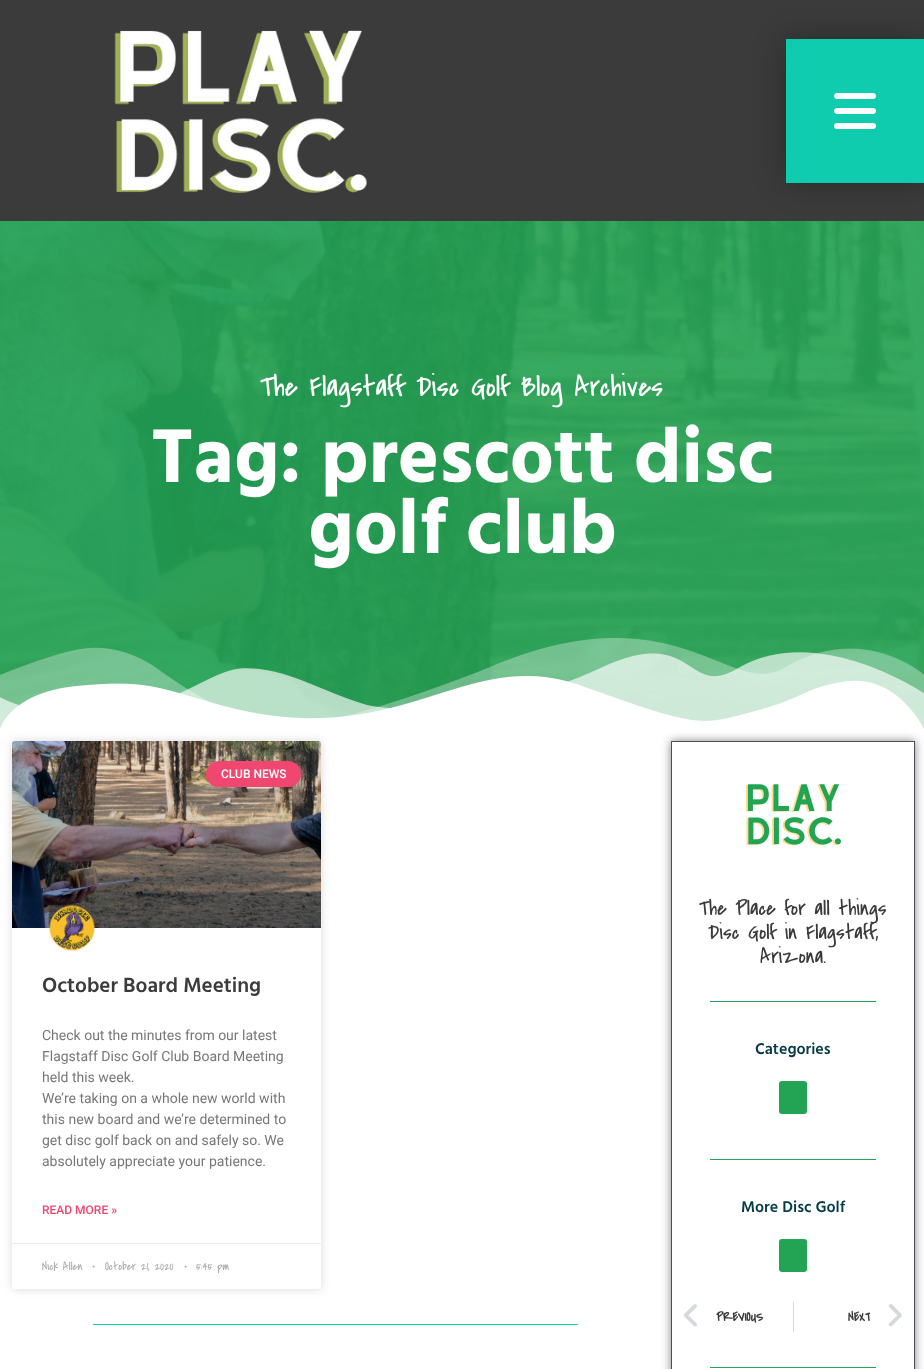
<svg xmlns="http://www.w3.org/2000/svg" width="924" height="1369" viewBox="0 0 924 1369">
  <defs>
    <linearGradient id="g1" gradientUnits="userSpaceOnUse" x1="167" y1="928" x2="167" y2="741"><stop offset="0" stop-color="rgb(0,0,0)" stop-opacity="0.35"/><stop offset="0.75" stop-color="rgb(0,0,0)" stop-opacity="0"/></linearGradient>
    <clipPath id="clip1"><path d="M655 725H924V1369H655ZM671 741H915V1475H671Z" clip-rule="evenodd"/></clipPath>
    <clipPath id="clip2"><rect x="848" y="1305" width="22" height="25"/></clipPath>
  </defs>
  <rect width="100%" height="100%" fill="rgb(255,255,255)"/>
  <rect x="0" y="0" width="924" height="221" fill="rgb(59,59,59)"/>
  <image x="114" y="30" width="253" height="164" href="pic1.png"/>
  <image x="0" y="221" width="924" height="508" href="pic3.png"/>
  <rect x="786" y="39" width="138" height="144" fill="rgba(0,0,0,0.3)" filter="blur(15px)"/>
  <rect x="786" y="39" width="138" height="144" fill="rgb(16,204,174)"/>
  <image x="834" y="93" width="42" height="36" href="pic2.png"/>
  <text x="260" y="396" font-family="Covered By Your Grace" font-size="30" fill="rgb(255,255,255)">The Flagstaff Disc Golf Blog Archives</text>
  <g font-family="Hind" font-size="78" font-weight="bold" fill="rgb(255,255,255)">
    <text x="151" y="482">Tag: prescott disc</text>
    <text x="308" y="553">golf club</text>
  </g>
  <image x="0" y="638" width="924" height="91" href="pic4.png"/>
  <rect x="12" y="741" width="309" height="548" rx="3" fill="rgba(0,0,0,0.15)" filter="blur(5px)"/>
  <rect x="12" y="741" width="309" height="548" rx="3" fill="rgb(255,255,255)"/>
  <image x="12" y="741" width="309" height="187" href="pic5.png"/>
  <rect x="12" y="796" width="309" height="132" fill="url(#g1)"/>
  <rect x="206" y="761" width="95" height="26" rx="13" fill="rgb(239,71,111)"/>
  <text x="221" y="778" font-family="Roboto" font-size="12" font-weight="500" fill="rgb(255,255,255)">CLUB NEWS</text>
  <image x="49" y="905" width="46" height="46" href="pic6.png"/>
  <text x="42" y="992" font-family="Hind" font-size="21" font-weight="600" fill="rgb(59,59,59)">October Board Meeting</text>
  <g font-family="Roboto" font-size="14" fill="rgb(119,119,119)">
    <text>
      <tspan x="42" y="1040">Check out the minutes from our latest</tspan>
      <tspan x="42" y="1061">Flagstaff Disc Golf Club Board Meeting</tspan>
      <tspan x="42" y="1082">held this week.</tspan>
      <tspan x="42" y="1103">We’re taking on a whole new world with</tspan>
      <tspan x="42" y="1124">this new board and we’re determined to</tspan>
      <tspan x="42" y="1145">get disc golf back on and safely so. We</tspan>
      <tspan x="42" y="1166">absolutely appreciate your patience.</tspan>
    </text>
  </g>
  <text x="42" y="1214" font-family="Roboto" font-size="12" font-weight="500" fill="rgb(239,71,111)">READ MORE »</text>
  <rect x="12" y="1243" width="309" height="1" fill="rgb(234,234,234)"/>
  <g font-family="Covered By Your Grace" font-size="12" fill="rgb(173,173,173)">
    <text x="42" y="1270">Nick Allen</text>
    <text x="92" y="1270">•</text>
    <text x="105" y="1270">October 21, 2020</text>
    <text x="184" y="1270">•</text>
    <text x="196" y="1270">5:45 pm</text>
  </g>
  <rect x="93" y="1324" width="485" height="1" fill="rgb(6,214,160)"/>
  <g clip-path="url(#clip1)">
    <rect x="671" y="741" width="244" height="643" fill="rgba(0,0,0,0.5)" filter="blur(5px)"/>
  </g>
  <rect x="671.5" y="741.5" width="243" height="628" fill="none" stroke="rgb(75,79,88)"/>
  <image x="745" y="784" width="96" height="62" href="pic7.png"/>
  <g font-family="Covered By Your Grace" font-size="22" fill="rgb(59,59,59)">
    <text x="699" y="915">The Place for all things</text>
    <text x="708" y="939">Disc Golf in Flagstaff,</text>
    <text x="760" y="963">Arizona.</text>
  </g>
  <rect x="710" y="1001" width="166" height="1" fill="rgb(35,164,85)"/>
  <text x="755" y="1054" font-family="Hind" font-size="16" font-weight="600" fill="rgb(7,59,76)">Categories</text>
  <rect x="779" y="1081" width="28" height="33" rx="3" fill="rgb(35,164,85)"/>
  <rect x="710" y="1159" width="166" height="1" fill="rgb(35,164,85)"/>
  <text x="741" y="1212" font-family="Hind" font-size="16" font-weight="600" fill="rgb(7,59,76)">More Disc Golf</text>
  <rect x="779" y="1239" width="28" height="33" rx="3" fill="rgb(35,164,85)"/>
  <image x="684" y="1304" width="13" height="23" href="pic8.png"/>
  <text x="716" y="1321" font-family="Covered By Your Grace" font-size="13" font-weight="bold" fill="rgb(59,59,59)">PREVIOUS</text>
  <rect x="793" y="1302" width="1" height="30" fill="rgb(213,216,220)"/>
  <g clip-path="url(#clip2)">
    <text x="848" y="1321" font-family="Covered By Your Grace" font-size="13" font-weight="bold" fill="rgb(59,59,59)">NEXT</text>
  </g>
  <image x="888" y="1304" width="14" height="23" href="pic9.png"/>
  <rect x="710" y="1367" width="166" height="1" fill="rgb(35,164,85)"/>
</svg>
